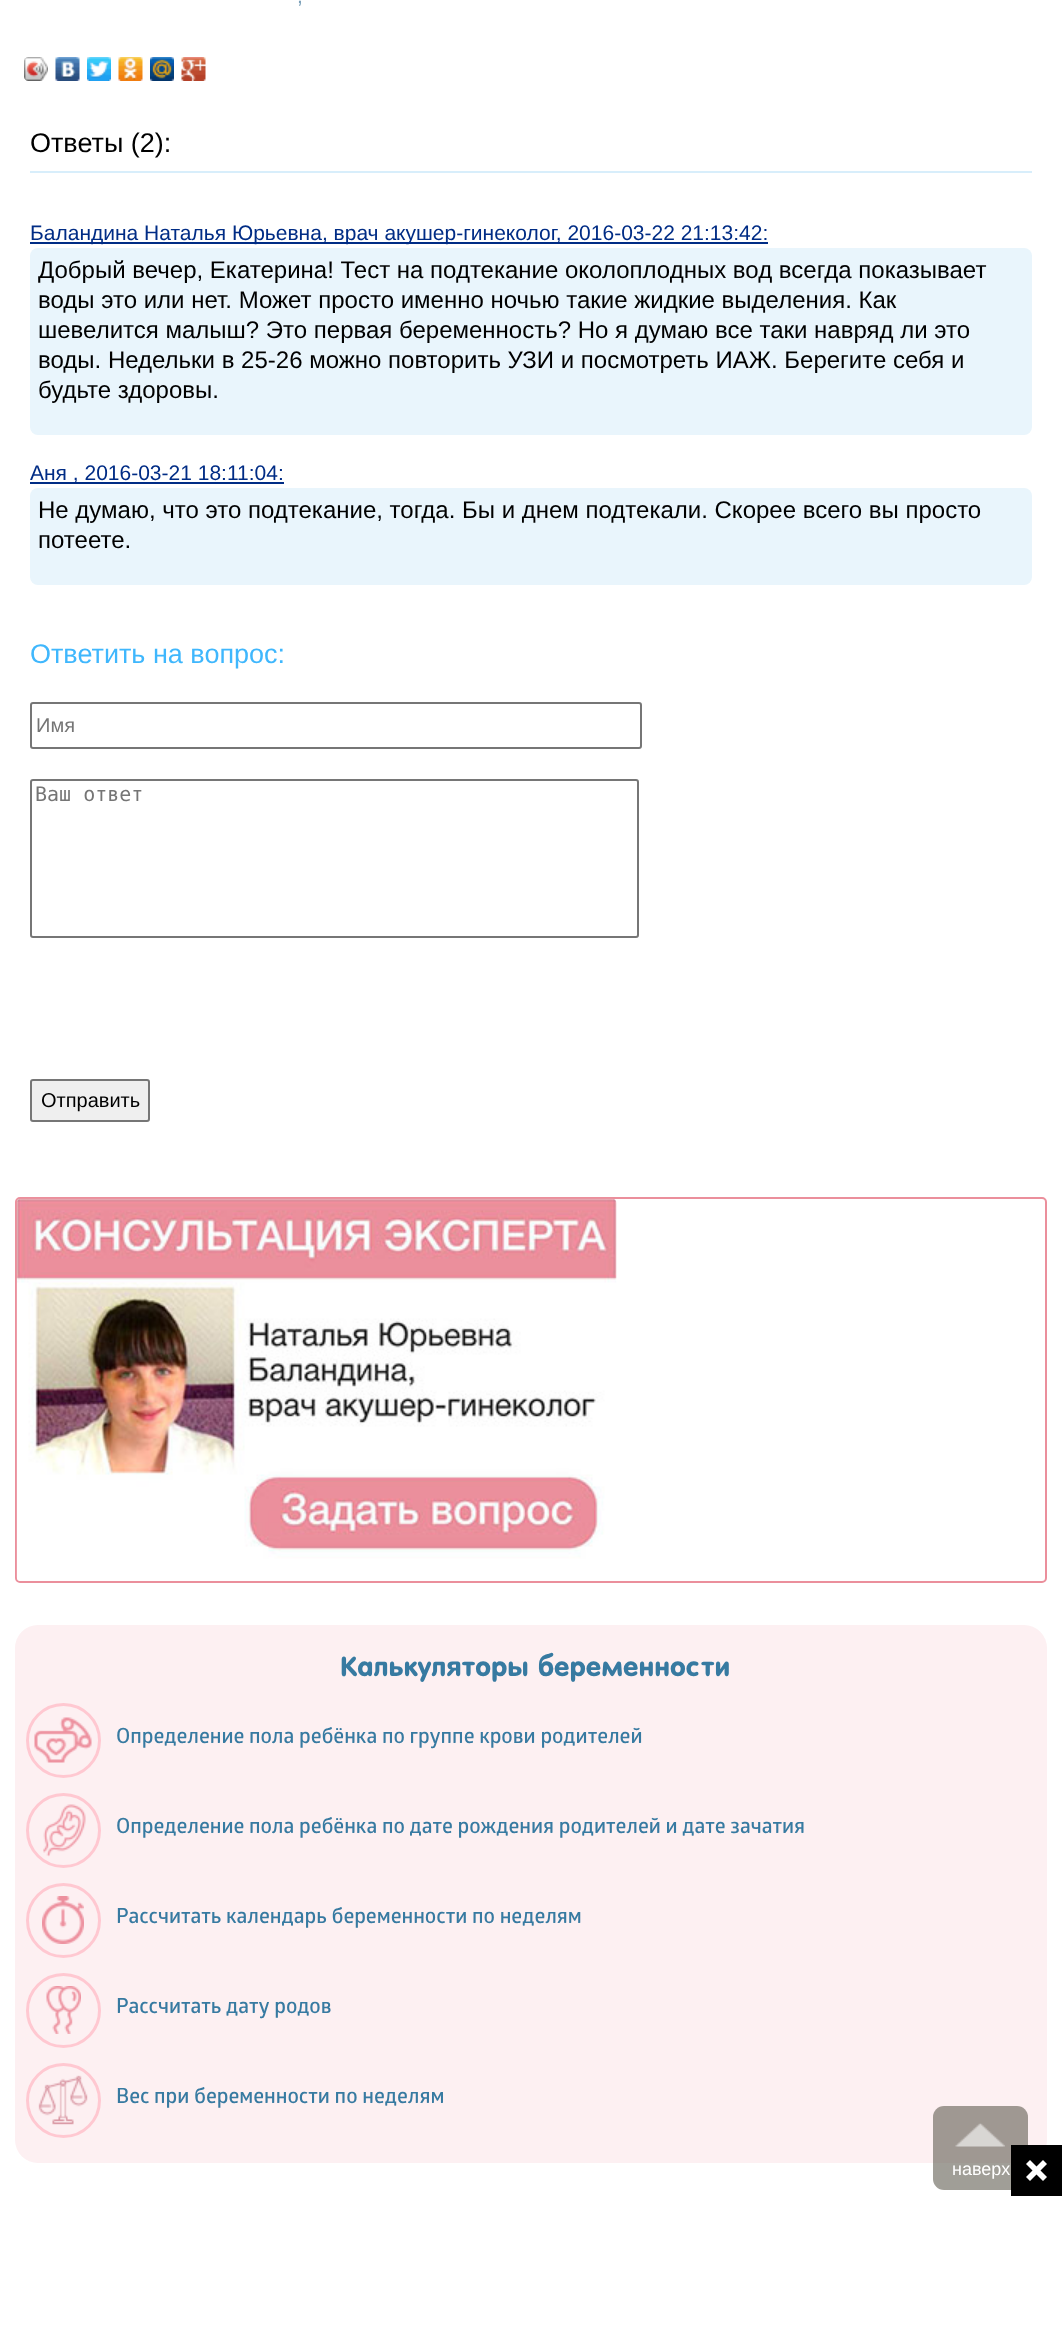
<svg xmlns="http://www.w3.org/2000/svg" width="1062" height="2325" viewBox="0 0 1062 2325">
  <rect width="100%" height="100%" fill="rgb(255,255,255)"/>
  <text x="297" y="3" font-family="Liberation Sans" font-size="21" fill="rgb(122,159,184)">,</text>
  <image x="24" y="57" width="24" height="24" href="pic1.png"/>
  <image x="24" y="57" width="24" height="24" href="pic2.png"/>
  <image x="55" y="57" width="25" height="24" href="pic3.png"/>
  <image x="87" y="57" width="24" height="24" href="pic4.png"/>
  <image x="118" y="57" width="25" height="24" href="pic5.png"/>
  <image x="150" y="57" width="24" height="24" href="pic6.png"/>
  <image x="181" y="57" width="25" height="24" href="pic7.png"/>
  <rect x="30" y="171" width="1002" height="2" fill="rgb(216,238,251)"/>
  <text x="30" y="152" font-family="Liberation Sans" font-size="27" fill="rgb(0,0,0)">Ответы (2):</text>
  <rect x="30" y="242" width="738" height="2" fill="rgb(0,44,133)"/>
  <text x="30" y="240" font-family="Liberation Sans" font-size="21" fill="rgb(0,44,133)">Баландина Наталья Юрьевна, врач акушер-гинеколог, 2016-03-22 21:13:42:</text>
  <rect x="30" y="248" width="1002" height="187" rx="8" fill="rgb(233,245,252)"/>
  <g font-family="Liberation Sans" font-size="24" fill="rgb(0,0,0)">
    <text>
      <tspan x="38" y="278">Добрый вечер, Екатерина! Тест на подтекание околоплодных вод всегда показывает</tspan>
      <tspan x="38" y="308">воды это или нет. Может просто именно ночью такие жидкие выделения. Как</tspan>
      <tspan x="38" y="338">шевелится малыш? Это первая беременность? Но я думаю все таки навряд ли это</tspan>
      <tspan x="38" y="368">воды. Недельки в 25-26 можно повторить УЗИ и посмотреть ИАЖ. Берегите себя и</tspan>
      <tspan x="38" y="398">будьте здоровы.</tspan>
    </text>
  </g>
  <rect x="30" y="482" width="254" height="2" fill="rgb(0,44,133)"/>
  <text x="30" y="480" font-family="Liberation Sans" font-size="21" fill="rgb(0,44,133)">Аня , 2016-03-21 18:11:04:</text>
  <rect x="30" y="488" width="1002" height="97" rx="8" fill="rgb(233,245,252)"/>
  <g font-family="Liberation Sans" font-size="24" fill="rgb(0,0,0)">
    <text>
      <tspan x="38" y="518">Не думаю, что это подтекание, тогда. Бы и днем подтекали. Скорее всего вы просто</tspan>
      <tspan x="38" y="548">потеете.</tspan>
    </text>
  </g>
  <text x="30" y="663" font-family="Liberation Sans" font-size="27" fill="rgb(63,183,253)">Ответить на вопрос:</text>
  <rect x="31" y="703" width="610" height="45" rx="2" fill="none" stroke="rgb(118,118,118)" stroke-width="2"/>
  <text x="36" y="732" font-family="Liberation Sans" font-size="20" fill="rgb(117,117,117)">Имя</text>
  <rect x="31" y="780" width="607" height="157" rx="2" fill="none" stroke="rgb(118,118,118)" stroke-width="2"/>
  <text x="35" y="801" font-family="DejaVu Sans Mono" font-size="20" fill="rgb(117,117,117)">Ваш ответ</text>
  <rect x="31" y="1080" width="118" height="41" rx="2" fill="rgb(239,239,239)" stroke="rgb(118,118,118)" stroke-width="2"/>
  <text x="41" y="1107" font-family="Liberation Sans" font-size="20" fill="rgb(0,0,0)">Отправить</text>
  <rect x="16" y="1198" width="1030" height="384" rx="4" fill="none" stroke="rgb(235,143,156)" stroke-width="2"/>
  <image x="16" y="1198" width="601" height="383" href="pic8.png"/>
  <rect x="15" y="1625" width="1032" height="538" rx="23" fill="rgb(253,240,242)"/>
  <text x="340" y="1676" font-family="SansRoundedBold" font-size="27" font-weight="bold" fill="rgb(55,122,161)">Калькуляторы беременности</text>
  <image x="34" y="1717" width="58" height="46" href="pic9.png"/>
  <circle cx="63.5" cy="1740.5" r="36" fill="none" stroke="rgb(255,200,209)" stroke-width="3"/>
  <text x="116" y="1743" font-family="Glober" font-size="21" font-weight="bold" fill="rgb(55,122,161)">Определение пола ребёнка по группе крови родителей</text>
  <image x="43" y="1804" width="43" height="53" href="pic10.png"/>
  <circle cx="63.5" cy="1830.5" r="36" fill="none" stroke="rgb(255,200,209)" stroke-width="3"/>
  <text x="116" y="1833" font-family="Glober" font-size="21" font-weight="bold" fill="rgb(55,122,161)">Определение пола ребёнка по дате рождения родителей и дате зачатия</text>
  <image x="42" y="1896" width="42" height="48" href="pic11.png"/>
  <circle cx="63.5" cy="1920.5" r="36" fill="none" stroke="rgb(255,200,209)" stroke-width="3"/>
  <text x="116" y="1923" font-family="Glober" font-size="21" font-weight="bold" fill="rgb(55,122,161)">Рассчитать календарь беременности по неделям</text>
  <image x="46" y="1986" width="35" height="48" href="pic12.png"/>
  <circle cx="63.5" cy="2010.5" r="36" fill="none" stroke="rgb(255,200,209)" stroke-width="3"/>
  <text x="116" y="2013" font-family="Glober" font-size="21" font-weight="bold" fill="rgb(55,122,161)">Рассчитать дату родов</text>
  <image x="38" y="2075" width="50" height="50" href="pic13.png"/>
  <circle cx="63.5" cy="2100.5" r="36" fill="none" stroke="rgb(255,200,209)" stroke-width="3"/>
  <text x="116" y="2103" font-family="Glober" font-size="21" font-weight="bold" fill="rgb(55,122,161)">Вес при беременности по неделям</text>
  <rect x="933" y="2106" width="95" height="84" rx="11" fill="rgba(97,94,82,0.6)"/>
  <image x="955" y="2123" width="50" height="24" href="pic14.png"/>
  <text x="952" y="2175" font-family="Liberation Sans" font-size="18" fill="rgb(255,255,255)">наверх</text>
  <rect x="1011" y="2145" width="51" height="51" fill="rgb(0,0,0)"/>
  <path d="M1026 2177L1043 2160L1047 2164L1030 2181Z" fill="rgb(255,255,255)"/>
  <path d="M1030 2160L1047 2177L1043 2181L1026 2164Z" fill="rgb(255,255,255)"/>
</svg>
